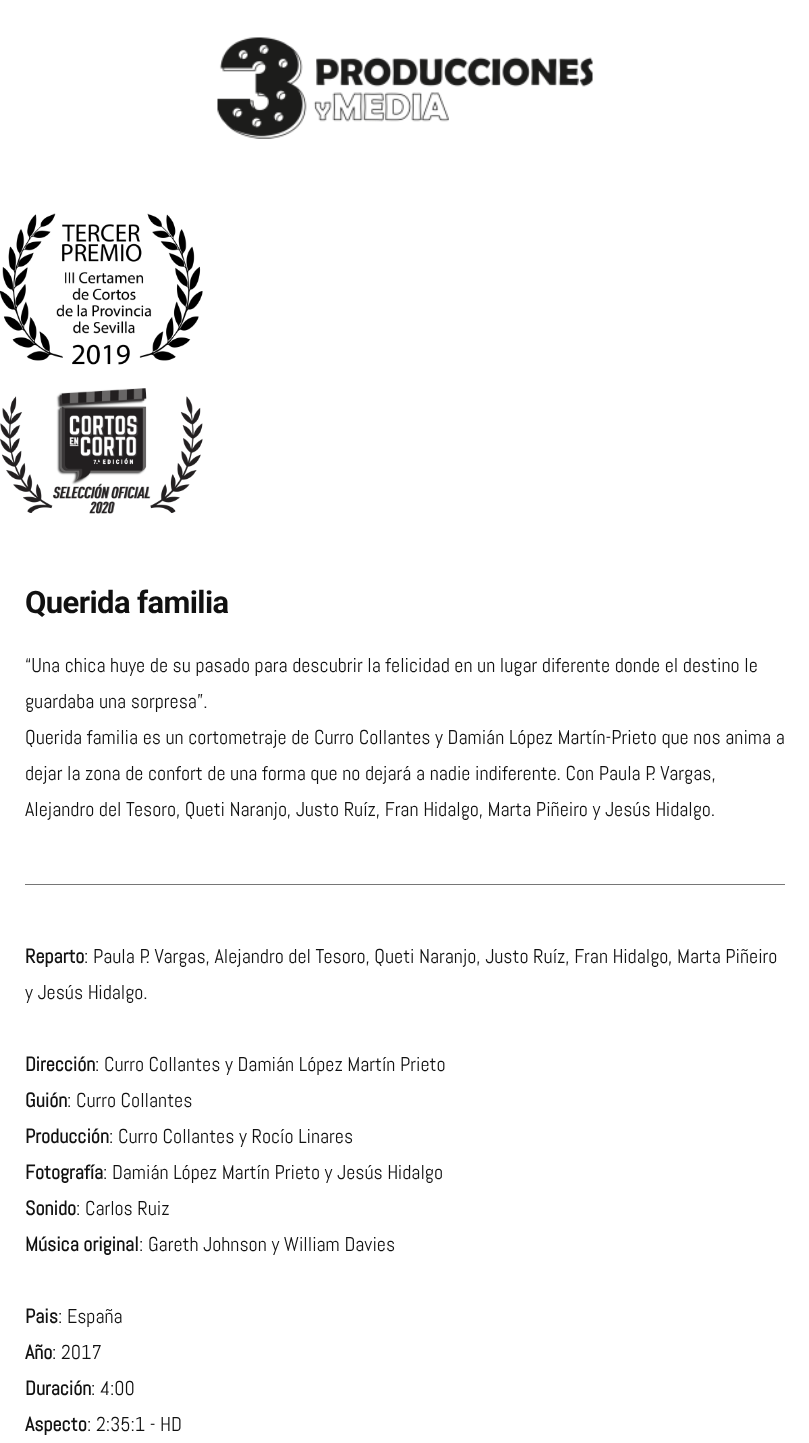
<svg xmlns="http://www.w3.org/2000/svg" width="809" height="1443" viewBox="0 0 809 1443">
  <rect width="100%" height="100%" fill="rgb(255,255,255)"/>
  <image x="217" y="37" width="376" height="102" href="pic1.png"/>
  <image x="0" y="213" width="203" height="152" href="pic2.png"/>
  <image x="0" y="388" width="203" height="126" href="pic3.png"/>
  <text x="25" y="613" font-family="Roboto" font-size="31" font-weight="bold" letter-spacing="-0.6" fill="rgb(17,17,17)">Querida familia</text>
  <g font-family="Abel" font-size="20" fill="rgb(17,17,17)">
    <text>
      <tspan x="25" y="672">“Una chica huye de su pasado para descubrir la felicidad en un lugar diferente donde el destino le</tspan>
      <tspan x="25" y="708">guardaba una sorpresa”.</tspan>
      <tspan x="25" y="744">Querida familia es un cortometraje de Curro Collantes y Damián López Martín-Prieto que nos anima a</tspan>
      <tspan x="25" y="780">dejar la zona de confort de una forma que no dejará a nadie indiferente. Con Paula P. Vargas,</tspan>
      <tspan x="25" y="816">Alejandro del Tesoro, Queti Naranjo, Justo Ruíz, Fran Hidalgo, Marta Piñeiro y Jesús Hidalgo.</tspan>
    </text>
  </g>
  <rect x="25" y="884" width="760" height="1" fill="rgb(118,118,118)"/>
  <text x="25" y="963" font-family="Abel" font-size="20" font-weight="bold" fill="rgb(17,17,17)">Reparto</text>
  <g font-family="Abel" font-size="20" fill="rgb(17,17,17)">
    <text x="84" y="963">: Paula P. Vargas, Alejandro del Tesoro, Queti Naranjo, Justo Ruíz, Fran Hidalgo, Marta Piñeiro</text>
    <text x="25" y="999">y Jesús Hidalgo.</text>
  </g>
  <text x="25" y="1071" font-family="Abel" font-size="20" font-weight="bold" fill="rgb(17,17,17)">Dirección</text>
  <text x="95" y="1071" font-family="Abel" font-size="20" fill="rgb(17,17,17)">: Curro Collantes y Damián López Martín Prieto</text>
  <text x="25" y="1107" font-family="Abel" font-size="20" font-weight="bold" fill="rgb(17,17,17)">Guión</text>
  <text x="67" y="1107" font-family="Abel" font-size="20" fill="rgb(17,17,17)">: Curro Collantes</text>
  <text x="25" y="1143" font-family="Abel" font-size="20" font-weight="bold" fill="rgb(17,17,17)">Producción</text>
  <text x="109" y="1143" font-family="Abel" font-size="20" fill="rgb(17,17,17)">: Curro Collantes y Rocío Linares</text>
  <text x="25" y="1179" font-family="Abel" font-size="20" font-weight="bold" fill="rgb(17,17,17)">Fotografía</text>
  <text x="103" y="1179" font-family="Abel" font-size="20" fill="rgb(17,17,17)">: Damián López Martín Prieto y Jesús Hidalgo</text>
  <text x="25" y="1215" font-family="Abel" font-size="20" font-weight="bold" fill="rgb(17,17,17)">Sonido</text>
  <text x="76" y="1215" font-family="Abel" font-size="20" fill="rgb(17,17,17)">: Carlos Ruiz</text>
  <text x="25" y="1251" font-family="Abel" font-size="20" font-weight="bold" fill="rgb(17,17,17)">Música original</text>
  <text x="139" y="1251" font-family="Abel" font-size="20" fill="rgb(17,17,17)">: Gareth Johnson y William Davies</text>
  <text x="25" y="1323" font-family="Abel" font-size="20" font-weight="bold" fill="rgb(17,17,17)">Pais</text>
  <text x="58" y="1323" font-family="Abel" font-size="20" fill="rgb(17,17,17)">: España</text>
  <text x="25" y="1359" font-family="Abel" font-size="20" font-weight="bold" fill="rgb(17,17,17)">Año</text>
  <text x="52" y="1359" font-family="Abel" font-size="20" fill="rgb(17,17,17)">: 2017</text>
  <text x="25" y="1395" font-family="Abel" font-size="20" font-weight="bold" fill="rgb(17,17,17)">Duración</text>
  <text x="91" y="1395" font-family="Abel" font-size="20" fill="rgb(17,17,17)">: 4:00</text>
  <text x="25" y="1431" font-family="Abel" font-size="20" font-weight="bold" fill="rgb(17,17,17)">Aspecto</text>
  <text x="87" y="1431" font-family="Abel" font-size="20" fill="rgb(17,17,17)">: 2:35:1 - HD</text>
</svg>
